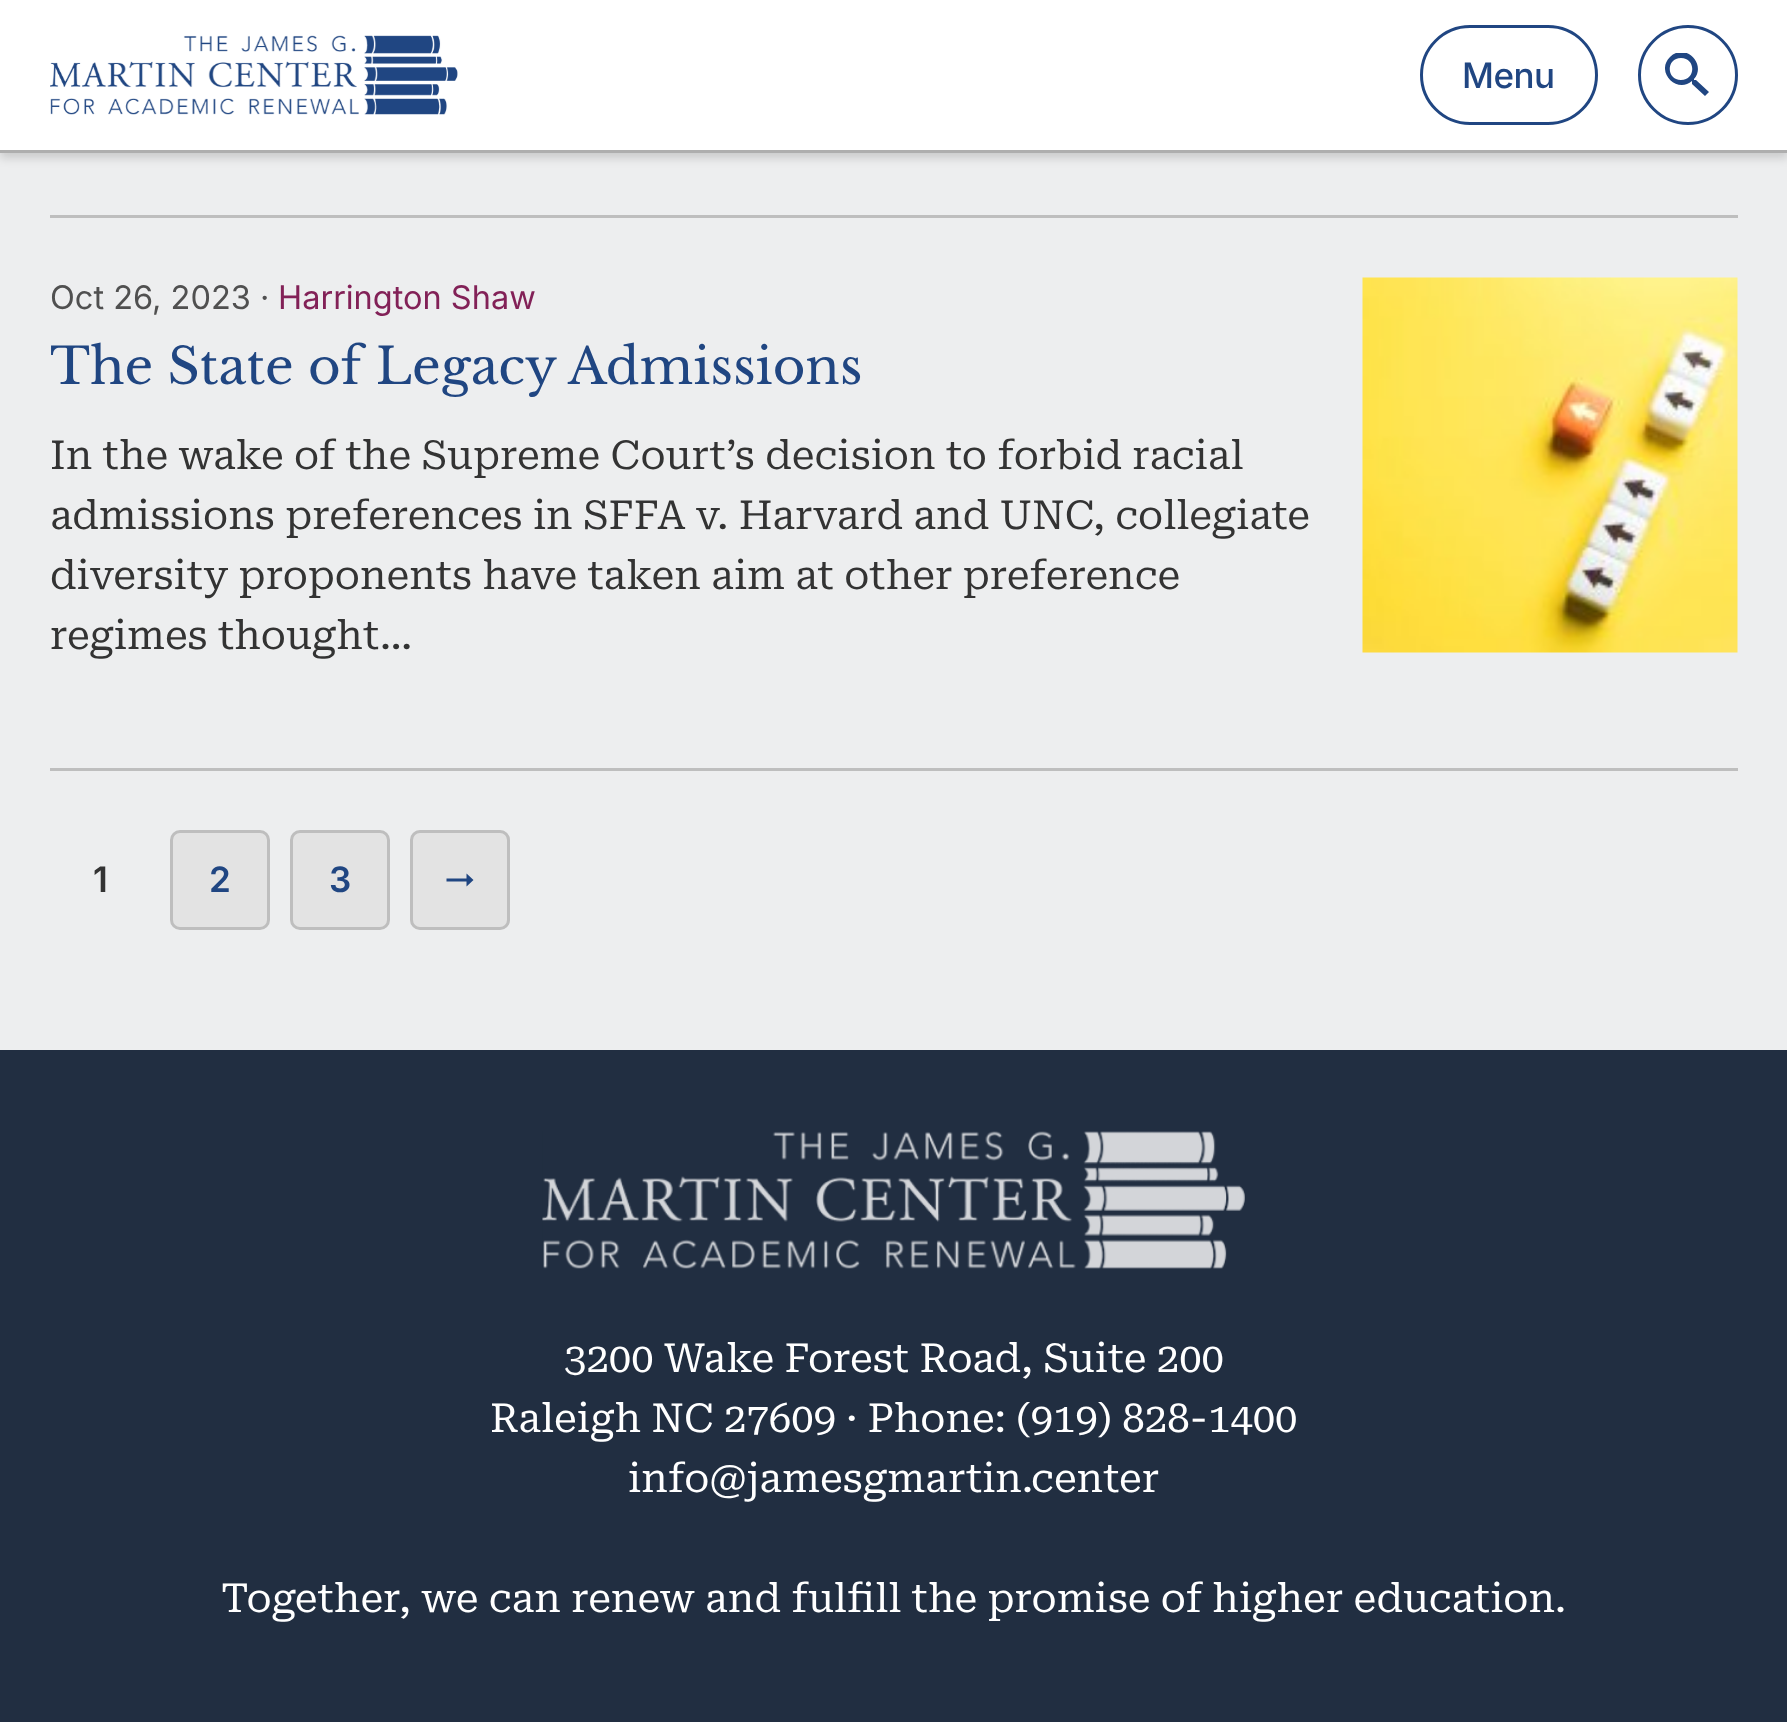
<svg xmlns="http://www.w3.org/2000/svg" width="1787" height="1722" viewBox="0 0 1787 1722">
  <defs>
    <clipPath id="clip1"><rect x="1665" y="53" width="45" height="45"/></clipPath>
  </defs>
  <rect width="100%" height="100%" fill="rgb(237,238,239)"/>
  <rect x="0" y="5" width="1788" height="153" fill="rgba(0,0,0,0.15)" filter="blur(5px)"/>
  <rect x="0" y="0" width="1787" height="150" fill="rgb(255,255,255)"/>
  <rect x="0" y="150" width="1787" height="3" fill="rgb(174,174,174)"/>
  <image x="50" y="35" width="408" height="80" href="pic1.png"/>
  <rect x="1421.5" y="26.5" width="175" height="97" rx="48.5" fill="none" stroke="rgb(32,70,130)" stroke-width="3"/>
  <text x="1462" y="88" font-family="Inter" font-size="35" font-weight="500" letter-spacing="-0.5" fill="rgb(32,70,130)">Menu</text>
  <circle cx="1688" cy="75" r="48.5" fill="none" stroke="rgb(32,70,130)" stroke-width="3"/>
  <g clip-path="url(#clip1)">
    <path d="M1696 80H1694V79C1707 64 1685 42 1670 57C1655 72 1677 94 1692 81V82V84L1705 96L1709 92ZM1681 80C1666 80 1666 58 1681 58C1696 58 1696 80 1681 80Z" fill="rgb(32,70,130)"/>
  </g>
  <rect x="50" y="215" width="1688" height="3" fill="rgb(190,190,190)"/>
  <text x="50" y="309" font-family="Inter" font-size="32.5" fill="rgb(80,80,80)">Oct 26, 2023 ·</text>
  <text x="278" y="309" font-family="Inter" font-size="32.5" fill="rgb(130,33,87)">Harrington Shaw</text>
  <image x="1362" y="277" width="376" height="376" href="pic2.png"/>
  <text x="50" y="384" font-family="Libre Baskerville" font-size="50" fill="rgb(32,70,130)">The State of Legacy Admissions</text>
  <g font-family="Roboto Serif" font-size="40" fill="rgb(51,51,51)">
    <text>
      <tspan x="50" y="469">In the wake of the Supreme Court’s decision to forbid racial</tspan>
      <tspan x="50" y="529">admissions preferences in SFFA v. Harvard and UNC, collegiate</tspan>
      <tspan x="50" y="589">diversity proponents have taken aim at other preference</tspan>
      <tspan x="50" y="649">regimes thought…</tspan>
    </text>
  </g>
  <rect x="50" y="768" width="1688" height="3" fill="rgb(190,190,190)"/>
  <text x="93" y="892" font-family="Inter" font-size="35" font-weight="600" fill="rgb(51,51,51)">1</text>
  <rect x="171.5" y="831.5" width="97" height="97" rx="8.5" fill="rgb(227,227,227)" stroke="rgb(190,190,190)" stroke-width="3"/>
  <text x="209" y="892" font-family="Inter" font-size="35" font-weight="600" fill="rgb(32,70,130)">2</text>
  <rect x="291.5" y="831.5" width="97" height="97" rx="8.5" fill="rgb(227,227,227)" stroke="rgb(190,190,190)" stroke-width="3"/>
  <text x="329" y="892" font-family="Inter" font-size="35" font-weight="600" fill="rgb(32,70,130)">3</text>
  <rect x="410" y="830" width="100" height="100" rx="10" fill="rgb(227,227,227)"/>
  <path d="M466.5 878.5H446.5V881.5H466.5V886.5L473.5 880L466.5 873.5Z" fill="rgb(32,70,130)"/>
  <rect x="411.5" y="831.5" width="97" height="97" rx="8.5" fill="none" stroke="rgb(190,190,190)" stroke-width="3"/>
  <rect x="0" y="1050" width="1787" height="672" fill="rgb(33,46,65)"/>
  <image x="542" y="1131" width="703" height="138" href="pic3.png"/>
  <g font-family="Roboto Serif" font-size="40" fill="rgb(255,255,255)">
    <text x="564" y="1372">3200 Wake Forest Road, Suite 200</text>
    <text x="490" y="1432">Raleigh NC 27609 · Phone: (919) 828-1400</text>
    <text x="628" y="1492">info@jamesgmartin.center</text>
    <text x="221" y="1612">Together, we can renew and fulfill the promise of higher education.</text>
  </g>
</svg>
